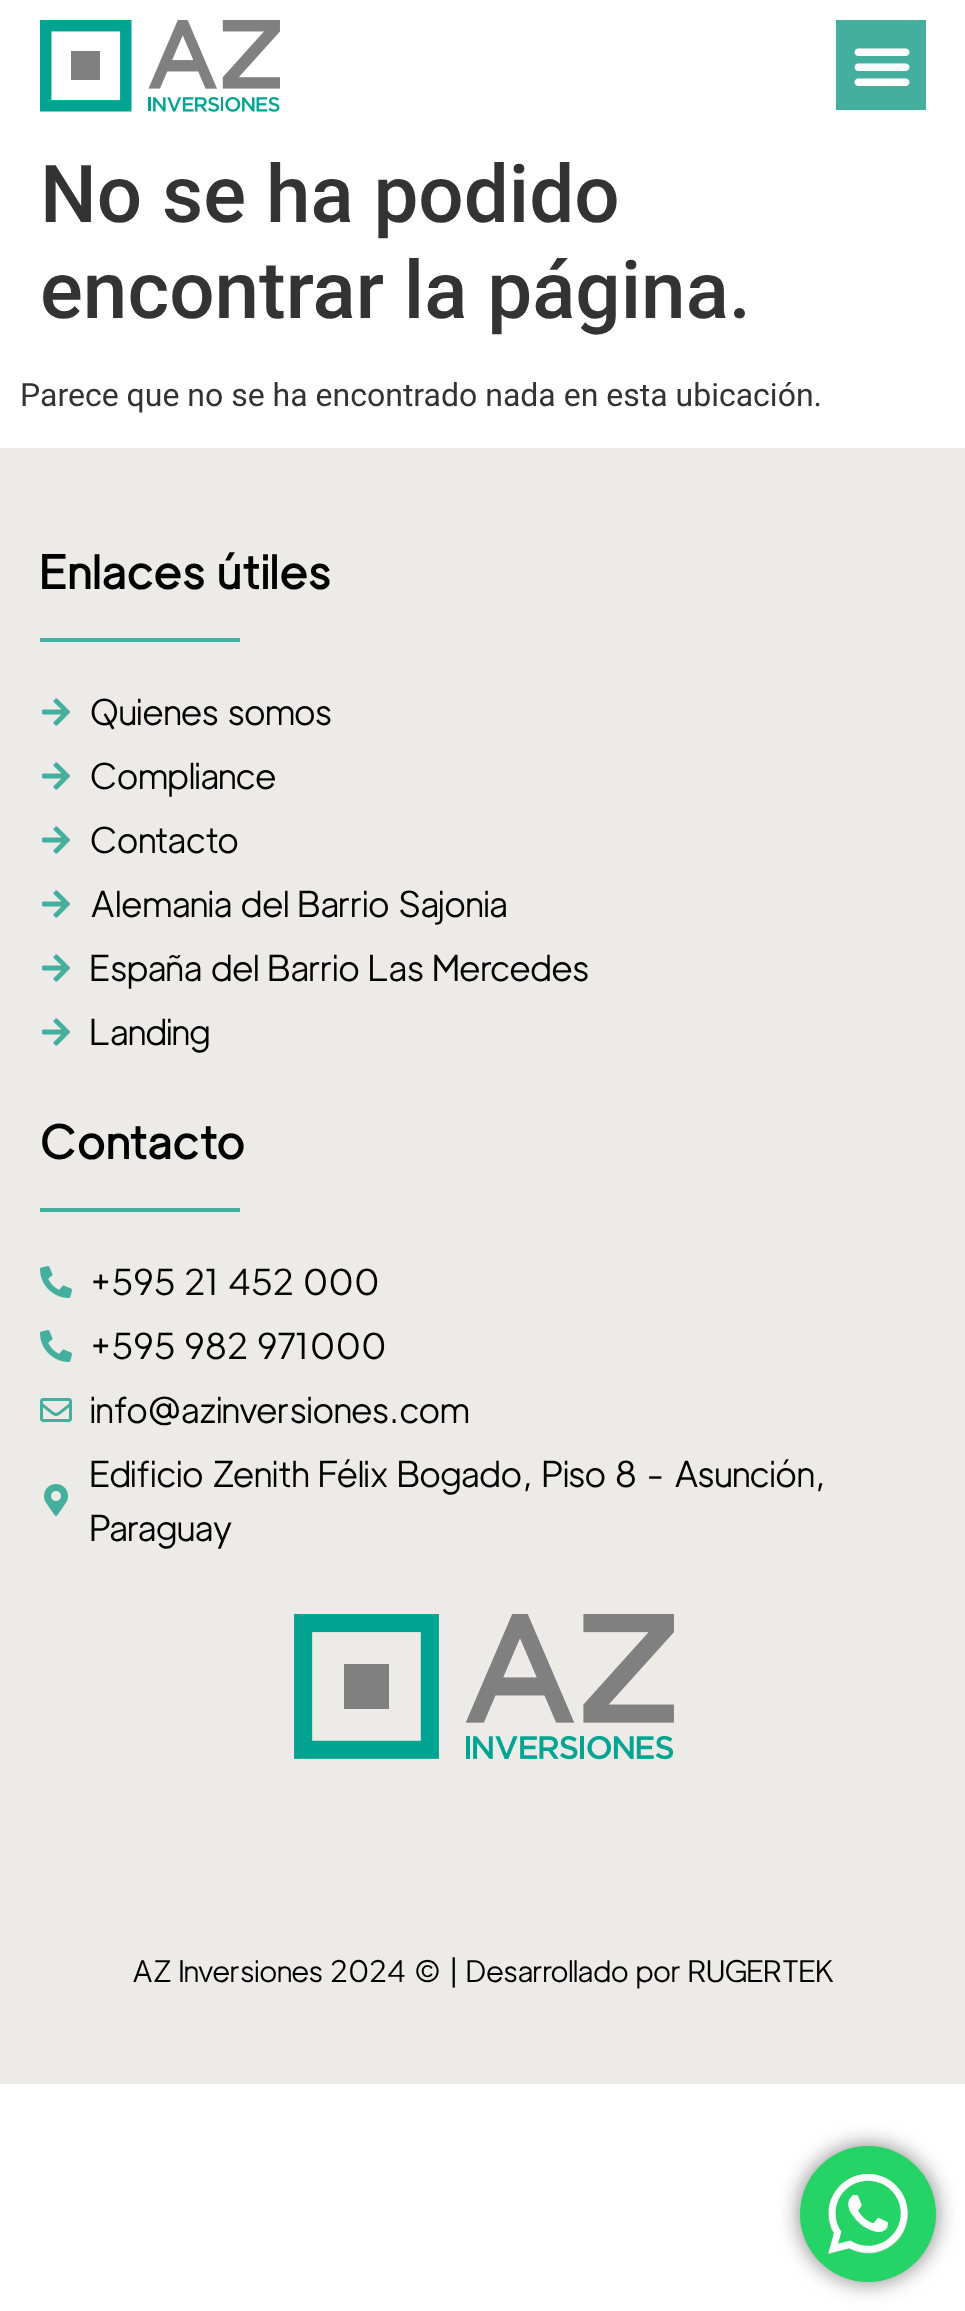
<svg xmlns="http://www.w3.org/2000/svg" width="965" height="2311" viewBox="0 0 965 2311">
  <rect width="100%" height="100%" fill="rgb(255,255,255)"/>
  <image x="40" y="20" width="240" height="92" href="pic1.png"/>
  <rect x="836" y="20" width="90" height="90" fill="rgb(69,175,159)"/>
  <image x="854" y="48" width="56" height="38" href="pic2.png"/>
  <g font-family="Roboto" font-size="80" font-weight="500" fill="rgb(51,51,51)">
    <text>
      <tspan x="40" y="222">No se ha podido</tspan>
      <tspan x="40" y="318">encontrar la página.</tspan>
    </text>
  </g>
  <text x="20" y="406" font-family="Roboto" font-size="32" fill="rgb(51,51,51)">Parece que no se ha encontrado nada en esta ubicación.</text>
  <rect x="0" y="448" width="965" height="1636" fill="rgb(237,235,232)"/>
  <text x="40" y="589" font-family="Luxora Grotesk" font-size="48" fill="rgb(0,0,0)">Enlaces útiles</text>
  <rect x="40" y="638" width="200" height="4" fill="rgb(69,175,159)"/>
  <image x="42" y="698" width="28" height="28" href="pic3.png"/>
  <text x="90" y="725" font-family="Luxora Grotesk" font-size="36" font-weight="300" fill="rgb(0,0,0)">Quienes somos</text>
  <image x="42" y="762" width="28" height="28" href="pic3.png"/>
  <text x="90" y="789" font-family="Luxora Grotesk" font-size="36" font-weight="300" fill="rgb(0,0,0)">Compliance</text>
  <image x="42" y="826" width="28" height="28" href="pic3.png"/>
  <text x="90" y="853" font-family="Luxora Grotesk" font-size="36" font-weight="300" fill="rgb(0,0,0)">Contacto</text>
  <image x="42" y="890" width="28" height="28" href="pic3.png"/>
  <text x="90" y="917" font-family="Luxora Grotesk" font-size="36" font-weight="300" fill="rgb(0,0,0)">Alemania del Barrio Sajonia</text>
  <image x="42" y="954" width="28" height="28" href="pic3.png"/>
  <text x="90" y="981" font-family="Luxora Grotesk" font-size="36" font-weight="300" fill="rgb(0,0,0)">España del Barrio Las Mercedes</text>
  <image x="42" y="1018" width="28" height="28" href="pic3.png"/>
  <text x="90" y="1045" font-family="Luxora Grotesk" font-size="36" font-weight="300" fill="rgb(0,0,0)">Landing</text>
  <text x="40" y="1159" font-family="Luxora Grotesk" font-size="48" fill="rgb(0,0,0)">Contacto</text>
  <rect x="40" y="1208" width="200" height="4" fill="rgb(69,175,159)"/>
  <image x="40" y="1266" width="32" height="32" href="pic4.png"/>
  <text x="90" y="1295" font-family="Luxora Grotesk" font-size="36" font-weight="300" fill="rgb(0,0,0)">+595 21 452 000</text>
  <image x="40" y="1330" width="32" height="32" href="pic4.png"/>
  <text x="90" y="1359" font-family="Luxora Grotesk" font-size="36" font-weight="300" fill="rgb(0,0,0)">+595 982 971000</text>
  <image x="40" y="1398" width="32" height="24" href="pic5.png"/>
  <text x="90" y="1423" font-family="Luxora Grotesk" font-size="36" font-weight="300" fill="rgb(0,0,0)">info@azinversiones.com</text>
  <image x="44" y="1484" width="24" height="32" href="pic6.png"/>
  <g font-family="Luxora Grotesk" font-size="36" font-weight="300" fill="rgb(0,0,0)">
    <text>
      <tspan x="90" y="1487">Edificio Zenith Félix Bogado, Piso 8 - Asunción,</tspan>
      <tspan x="90" y="1541">Paraguay</tspan>
    </text>
  </g>
  <image x="294" y="1614" width="380" height="146" href="pic7.png"/>
  <text x="132" y="1982" font-family="Luxora Grotesk" font-size="30" font-weight="300" fill="rgb(0,0,0)">AZ Inversiones 2024 © | Desarrollado por RUGERTEK</text>
  <rect x="800" y="2146" width="136" height="136" rx="68" fill="rgba(0,0,0,0.5)" filter="blur(11px)"/>
  <circle cx="868" cy="2214" r="68" fill="rgb(37,211,102)"/>
  <image x="828" y="2174" width="80" height="80" href="pic8.png"/>
</svg>
